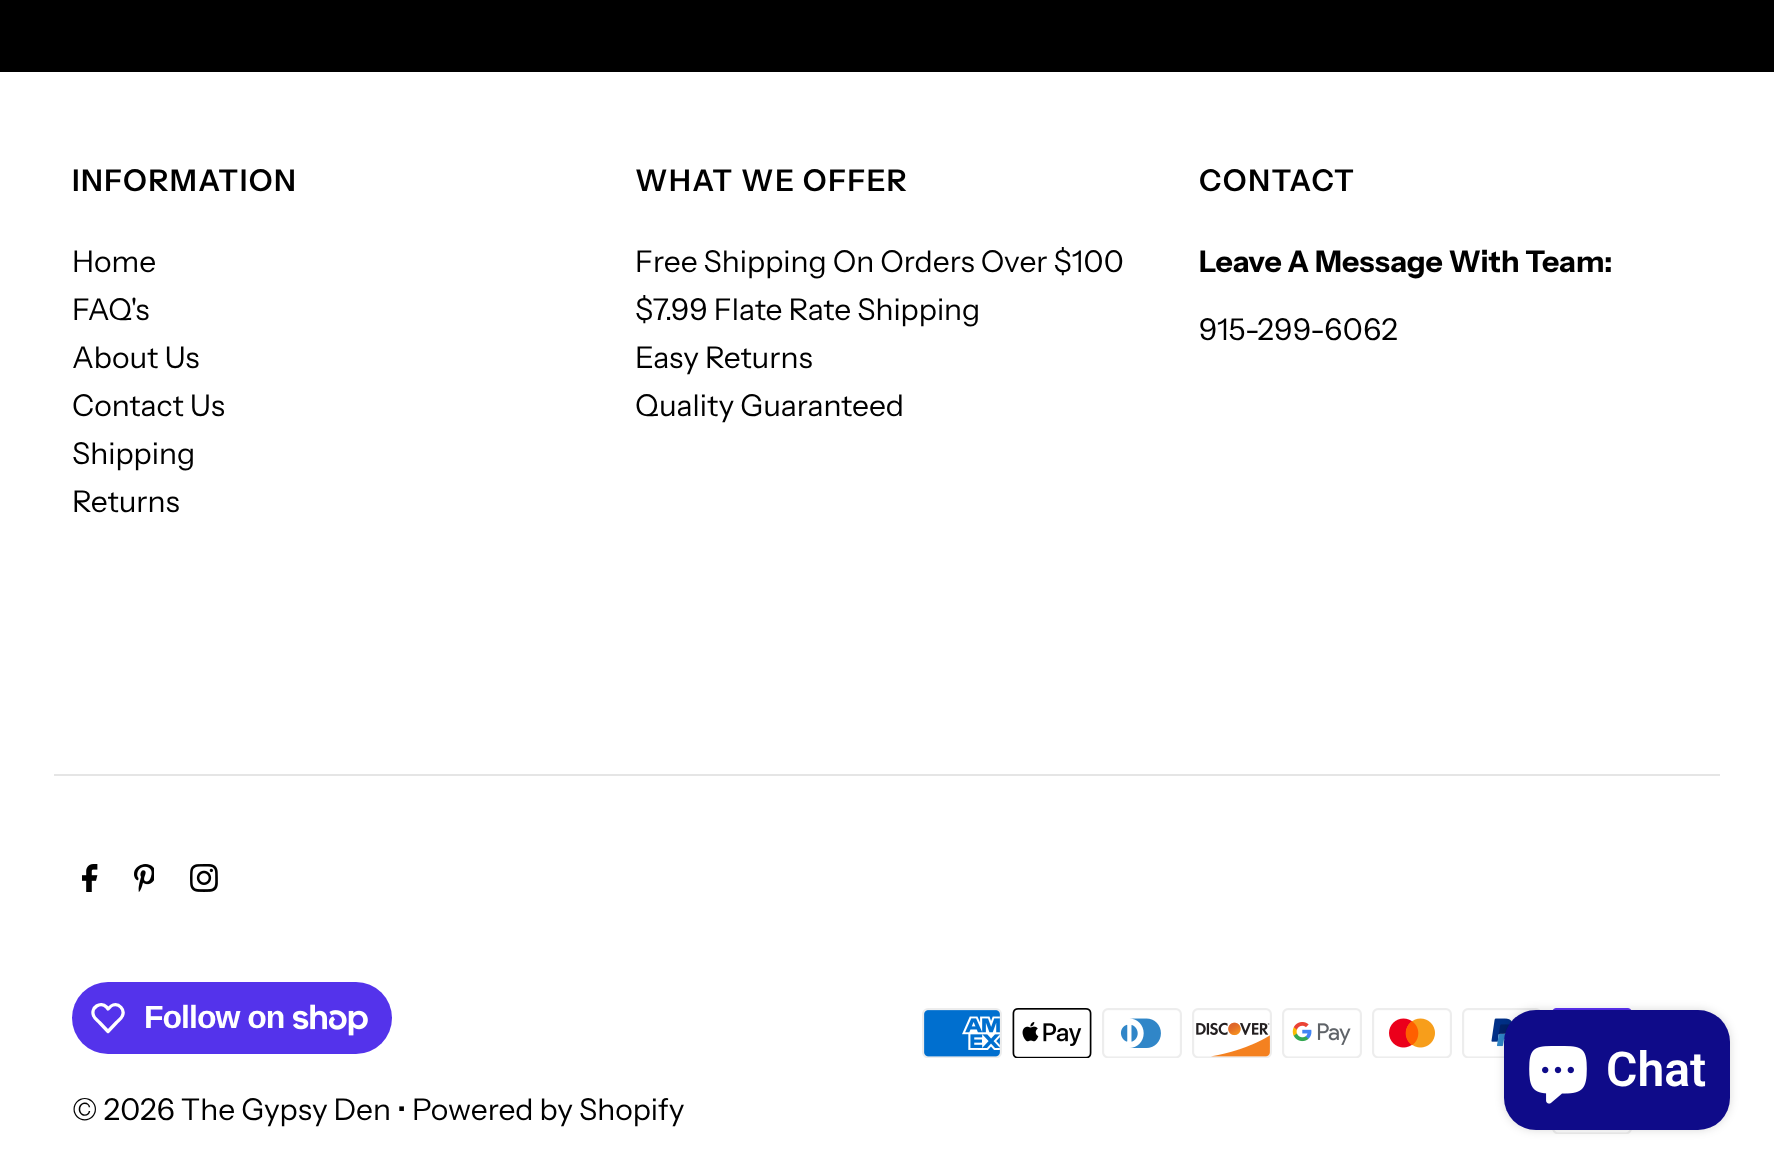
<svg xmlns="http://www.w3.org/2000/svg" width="1774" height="1172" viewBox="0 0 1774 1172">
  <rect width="100%" height="100%" fill="rgb(255,255,255)"/>
  <rect x="0" y="0" width="1774" height="72" fill="rgb(0,0,0)"/>
  <text x="72" y="191" font-family="Instrument Sans" font-size="30" font-weight="600" letter-spacing="1.5" fill="rgb(0,0,0)">INFORMATION</text>
  <g font-family="Instrument Sans" font-size="30" fill="rgb(0,0,0)">
    <text>
      <tspan x="72" y="272">Home</tspan>
      <tspan x="72" y="320">FAQ's</tspan>
      <tspan x="72" y="368">About Us</tspan>
      <tspan x="72" y="416">Contact Us</tspan>
      <tspan x="72" y="464">Shipping</tspan>
      <tspan x="72" y="512">Returns</tspan>
    </text>
  </g>
  <text x="635" y="191" font-family="Instrument Sans" font-size="30" font-weight="600" letter-spacing="1.5" fill="rgb(0,0,0)">WHAT WE OFFER</text>
  <g font-family="Instrument Sans" font-size="30" fill="rgb(0,0,0)">
    <text>
      <tspan x="635" y="272">Free Shipping On Orders Over $100</tspan>
      <tspan x="635" y="320">$7.99 Flate Rate Shipping</tspan>
      <tspan x="635" y="368">Easy Returns</tspan>
      <tspan x="635" y="416">Quality Guaranteed</tspan>
    </text>
  </g>
  <text x="1199" y="191" font-family="Instrument Sans" font-size="30" font-weight="600" letter-spacing="1.5" fill="rgb(0,0,0)">CONTACT</text>
  <text x="1199" y="272" font-family="Instrument Sans" font-size="30" font-weight="bold" fill="rgb(0,0,0)">Leave A Message With Team:</text>
  <text x="1199" y="340" font-family="Instrument Sans" font-size="30" fill="rgb(0,0,0)">915-299-6062</text>
  <rect x="54" y="774" width="1666" height="2" fill="rgb(229,229,229)"/>
  <image x="82" y="864" width="16" height="28" href="pic1.png"/>
  <image x="134" y="864" width="20" height="28" href="pic2.png"/>
  <image x="190" y="864" width="28" height="28" href="pic3.png"/>
  <rect x="72" y="982" width="320" height="72" rx="36" fill="rgb(84,51,235)"/>
  <path d="M106.5 1007L108 1009C109.5 1007.5 111 1005.5 113 1005C119 1003 125 1009.5 122.5 1015.5C121.5 1018.5 118.5 1020.5 116.5 1022.5L108 1031.5L99.5 1022.5C97.5 1020.5 94.5 1018.5 93.5 1015.5C90.5 1007.5 100.5 1001 106.5 1007Z" fill="none" stroke="rgb(255,255,255)" stroke-width="3.3" stroke-linejoin="round"/>
  <text x="144" y="1028" font-family="Liberation Sans" font-size="32" font-weight="bold" letter-spacing="-1" fill="rgb(255,255,255)">Follow on</text>
  <image x="293" y="1004" width="75" height="32" href="pic4.png"/>
  <text x="72" y="1120" font-family="Instrument Sans" font-size="30" fill="rgb(0,0,0)">© 2026 The Gypsy Den • Powered by Shopify</text>
  <image x="922" y="1008" width="80" height="50" href="pic5.png"/>
  <image x="1012" y="1008" width="80" height="50" href="pic6.png"/>
  <image x="1102" y="1008" width="80" height="50" href="pic7.png"/>
  <image x="1192" y="1008" width="80" height="50" href="pic8.png"/>
  <image x="1282" y="1008" width="80" height="50" href="pic9.png"/>
  <image x="1372" y="1008" width="80" height="50" href="pic10.png"/>
  <image x="1462" y="1008" width="78" height="50" href="pic11.png"/>
  <image x="1552" y="1008" width="80" height="2" href="pic12.png"/>
  <image x="1552" y="1130" width="80" height="4" href="pic13.png"/>
  <rect x="1504" y="1010" width="226" height="120" rx="32" fill="rgba(0,0,0,0.15)" filter="blur(5px)"/>
  <rect x="1504" y="1010" width="226" height="120" rx="32" fill="rgb(15,11,137)"/>
  <image x="1529" y="1046" width="58" height="58" href="pic14.png"/>
  <text x="1606" y="1086" font-family="Roboto" font-size="48" font-weight="600" fill="rgb(255,255,255)">Chat</text>
</svg>
